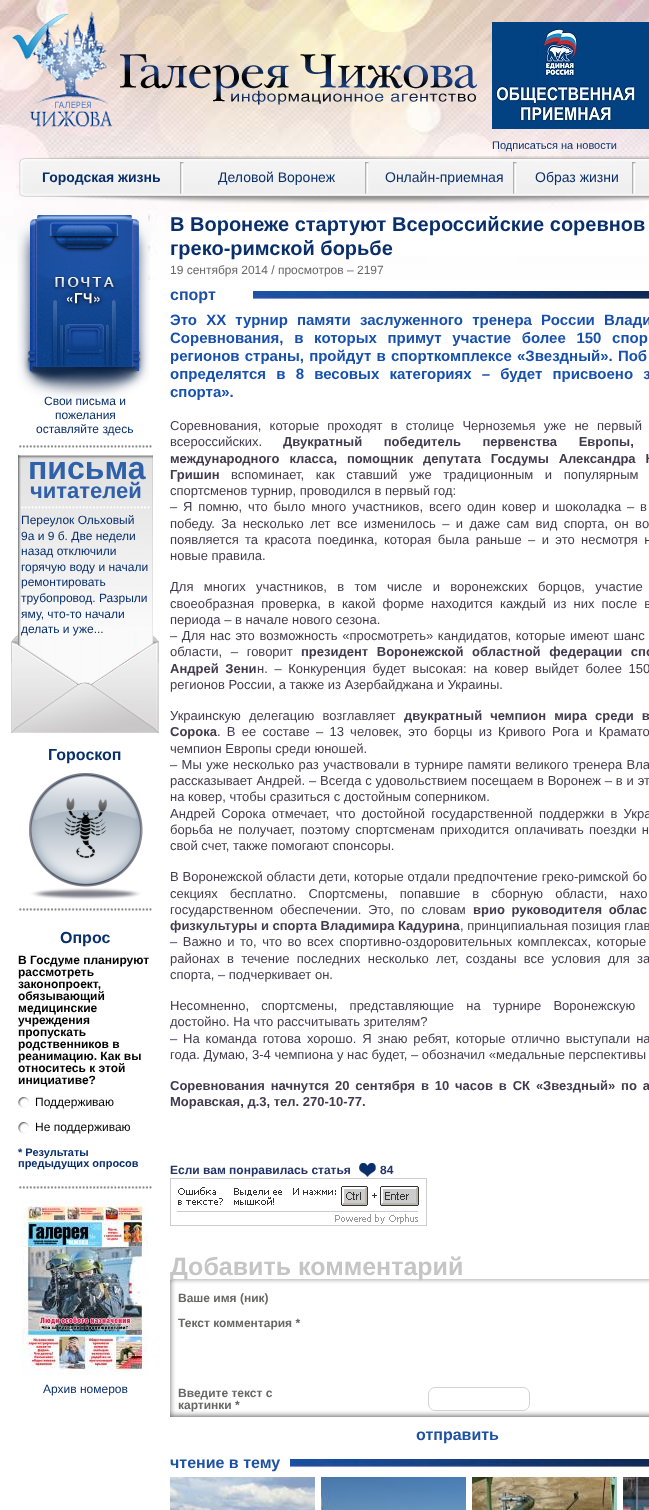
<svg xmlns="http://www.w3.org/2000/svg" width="649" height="1510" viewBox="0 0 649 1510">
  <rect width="100%" height="100%" fill="rgb(255,255,255)"/>
  <image x="0" y="0" width="649" height="280" href="pic1.png"/>
  <image x="10" y="13" width="59" height="47" href="pic3.png"/>
  <image x="26" y="11" width="87" height="119" href="pic2.png"/>
  <image x="120" y="54" width="358" height="51" href="pic4.png"/>
  <image x="492" y="22" width="157" height="107" href="pic5.png"/>
  <text x="492" y="149" font-family="Liberation Sans" font-size="11" fill="rgb(9,47,107)">Подписаться на новости</text>
  <image x="16" y="156" width="633" height="48" href="pic6.png"/>
  <text x="42" y="182" font-family="Liberation Sans" font-size="14" font-weight="bold" fill="rgb(9,47,107)">Городская жизнь</text>
  <g font-family="Liberation Sans" font-size="14" fill="rgb(9,47,107)">
    <text x="218" y="182">Деловой Воронеж</text>
    <text x="385" y="182">Онлайн-приемная</text>
    <text x="535" y="182">Образ жизни</text>
  </g>
  <image x="19" y="445" width="133" height="3" href="pic7.png"/>
  <image x="17" y="215" width="133" height="184" href="pic8.png"/>
  <g font-family="Liberation Sans" font-size="12" fill="rgb(9,47,107)">
    <text x="44" y="405">Свои письма и</text>
    <text x="55" y="419">пожелания</text>
    <text x="36" y="433">оставляйте здесь</text>
  </g>
  <image x="18" y="455" width="135" height="232" href="pic9.png"/>
  <image x="11" y="635" width="148" height="98" href="pic10.png"/>
  <image x="21" y="506" width="129" height="3" href="pic11.png"/>
  <text x="28" y="479" font-family="Liberation Sans" font-size="32" font-weight="bold" fill="rgb(47,96,170)">письма</text>
  <text x="30" y="498" font-family="Liberation Sans" font-size="22" font-weight="bold" fill="rgb(47,96,170)">читателей</text>
  <g font-family="Liberation Sans" font-size="12" fill="rgb(9,47,107)">
    <text>
      <tspan x="21" y="524">Переулок Ольховый</tspan>
      <tspan x="21" y="540">9а и 9 б. Две недели</tspan>
      <tspan x="21" y="555">назад отключили</tspan>
      <tspan x="21" y="571">горячую воду и начали</tspan>
      <tspan x="21" y="586">ремонтировать</tspan>
      <tspan x="21" y="602">трубопровод. Разрыли</tspan>
      <tspan x="21" y="618">яму, что-то начали</tspan>
      <tspan x="21" y="633">делать и уже...</tspan>
    </text>
  </g>
  <image x="19" y="908" width="133" height="3" href="pic7.png"/>
  <text x="48" y="760" font-family="Liberation Sans" font-size="16" font-weight="bold" fill="rgb(9,47,107)">Гороскоп</text>
  <image x="29" y="773" width="114" height="127" href="pic12.png"/>
  <image x="19" y="1186" width="133" height="3" href="pic7.png"/>
  <text x="60" y="943" font-family="Liberation Sans" font-size="16" font-weight="bold" fill="rgb(9,47,107)">Опрос</text>
  <g font-family="Liberation Sans" font-size="12" font-weight="bold" fill="rgb(0,0,0)">
    <text>
      <tspan x="18" y="964">В Госдуме планируют</tspan>
      <tspan x="18" y="976">рассмотреть</tspan>
      <tspan x="18" y="988">законопроект,</tspan>
      <tspan x="18" y="1000">обязывающий</tspan>
      <tspan x="18" y="1012">медицинские</tspan>
      <tspan x="18" y="1024">учреждения</tspan>
      <tspan x="18" y="1036">пропускать</tspan>
      <tspan x="18" y="1048">родственников в</tspan>
      <tspan x="18" y="1060">реанимацию. Как вы</tspan>
      <tspan x="18" y="1072">относитесь к этой</tspan>
      <tspan x="18" y="1084">инициативе?</tspan>
    </text>
  </g>
  <image x="18" y="1097" width="11" height="11" href="pic13.png"/>
  <text x="35" y="1106" font-family="Liberation Sans" font-size="12" fill="rgb(0,0,0)">Поддерживаю</text>
  <image x="18" y="1122" width="11" height="12" href="pic14.png"/>
  <text x="35" y="1131" font-family="Liberation Sans" font-size="12" fill="rgb(0,0,0)">Не поддерживаю</text>
  <g font-family="Liberation Sans" font-size="11" font-weight="bold" fill="rgb(9,47,107)">
    <text>
      <tspan x="18" y="1156">* Результаты</tspan>
      <tspan x="18" y="1167">предыдущих опросов</tspan>
    </text>
  </g>
  <image x="22" y="1200" width="126" height="175" href="pic15.png"/>
  <text x="43" y="1393" font-family="Liberation Sans" font-size="12" fill="rgb(9,47,107)">Архив номеров</text>
  <rect x="170" y="212" width="479" height="44" fill="rgb(255,255,255)"/>
  <g font-family="Liberation Sans" font-size="20" font-weight="bold" fill="rgb(9,47,107)">
    <text>
      <tspan x="170" y="231">В Воронеже стартуют Всероссийские соревнов</tspan>
      <tspan x="170" y="255">греко-римской борьбе</tspan>
    </text>
  </g>
  <text x="170" y="274" font-family="Liberation Sans" font-size="12" fill="rgb(103,104,102)">19 сентября 2014 / просмотров – 2197</text>
  <text x="170" y="300" font-family="Liberation Sans" font-size="16" font-weight="bold" fill="rgb(30,81,164)">спорт</text>
  <image x="253" y="291" width="396" height="8" href="pic16.png"/>
  <g font-family="Liberation Sans" font-size="15" font-weight="bold" fill="rgb(23,81,173)">
    <text>
      <tspan x="170" y="325" word-spacing="5">Это XX турнир памяти заслуженного тренера России Влади</tspan>
      <tspan x="170" y="343" word-spacing="6.5">Соревнования, в которых примут участие более 150 спор</tspan>
      <tspan x="170" y="361" word-spacing="1">регионов страны, пройдут в спорткомплексе «Звездный». Поб</tspan>
      <tspan x="170" y="379" word-spacing="6">определятся в 8 весовых категориях – будет присвоено з</tspan>
      <tspan x="170" y="397">спорта».</tspan>
    </text>
  </g>
  <g font-family="Liberation Sans" font-size="13" fill="rgb(65,59,77)">
    <text>
      <tspan x="170" y="430" word-spacing="4.5">Соревнования, которые проходят в столице Черноземья уже не первый</tspan>
      <tspan x="170" y="446">всероссийских.</tspan>
    </text>
  </g>
  <g font-family="Liberation Sans" font-size="13" font-weight="bold" fill="rgb(65,59,77)">
    <text x="283" y="446" word-spacing="18">Двукратный победитель первенства Европы,</text>
    <text>
      <tspan x="170" y="463" word-spacing="6.25">международного класса, помощник депутата Госдумы Александра К</tspan>
      <tspan x="170" y="479">Гришин</tspan>
    </text>
  </g>
  <g font-family="Liberation Sans" font-size="13" fill="rgb(65,59,77)">
    <text x="231" y="479" word-spacing="8">вспоминает, как ставший уже традиционным и популярным</text>
    <text>
      <tspan x="170" y="495">спортсменов турнир, проводился в первый год:</tspan>
      <tspan x="170" y="511" word-spacing="2.25">– Я помню, что было много участников, всего один ковер и шоколадка – в</tspan>
      <tspan x="170" y="528" word-spacing="2.75">победу. За несколько лет все изменилось – и даже сам вид спорта, он во</tspan>
      <tspan x="170" y="544" word-spacing="2.75">появляется та красота поединка, которая была раньше – и это несмотря н</tspan>
      <tspan x="170" y="560">новые правила.</tspan>
    </text>
    <text>
      <tspan x="170" y="591" word-spacing="6.75">Для многих участников, в том числе и воронежских борцов, участие</tspan>
      <tspan x="170" y="608" word-spacing="3.5">своеобразная проверка, в какой форме находится каждый из них после в</tspan>
      <tspan x="170" y="624">периода – в начале нового сезона.</tspan>
      <tspan x="170" y="640" word-spacing="1">– Для нас это возможность «просмотреть» кандидатов, которые имеют шанс</tspan>
      <tspan x="170" y="656" word-spacing="5">области, – говорит</tspan>
    </text>
  </g>
  <g font-family="Liberation Sans" font-size="13" font-weight="bold" fill="rgb(65,59,77)">
    <text x="301" y="656" word-spacing="5">президент Воронежской областной федерации спо</text>
    <text x="170" y="673" word-spacing="3">Андрей Зени</text>
  </g>
  <g font-family="Liberation Sans" font-size="13" fill="rgb(65,59,77)">
    <text x="257" y="673" word-spacing="3">н. – Конкуренция будет высокая: на ковер выйдет более 150</text>
    <text x="170" y="689">регионов России, а также из Азербайджана и Украины.</text>
    <text x="170" y="720" word-spacing="4.5">Украинскую делегацию возглавляет</text>
  </g>
  <g font-family="Liberation Sans" font-size="13" font-weight="bold" fill="rgb(65,59,77)">
    <text x="404" y="720" word-spacing="4.5">двукратный чемпион мира среди в</text>
    <text x="170" y="736">Сорока</text>
  </g>
  <g font-family="Liberation Sans" font-size="13" fill="rgb(65,59,77)">
    <text x="217" y="736" word-spacing="2.6">. В ее составе – 13 человек, это борцы из Кривого Рога и Крамато</text>
    <text>
      <tspan x="170" y="753">чемпион Европы среди юношей.</tspan>
      <tspan x="170" y="769" word-spacing="0.75">– Мы уже несколько раз участвовали в турнире памяти великого тренера Вла</tspan>
      <tspan x="170" y="785" word-spacing="0.2">рассказывает Андрей. – Всегда с удовольствием посещаем в Воронеж – в и эт</tspan>
      <tspan x="170" y="801">на ковер, чтобы сразиться с достойным соперником.</tspan>
      <tspan x="170" y="818" word-spacing="2.6">Андрей Сорока отмечает, что достойной государственной поддержки в Укра</tspan>
      <tspan x="170" y="834" word-spacing="1.75">борьба не получает, поэтому спортсменам приходится оплачивать поездки н</tspan>
      <tspan x="170" y="850">свой счет, также помогают спонсоры.</tspan>
    </text>
    <text>
      <tspan x="170" y="881" word-spacing="0.25">В Воронежской области дети, которые отдали предпочтение греко-римской бо</tspan>
      <tspan x="170" y="898" word-spacing="8.5">секциях бесплатно. Спортсмены, попавшие в сборную области, нахо</tspan>
      <tspan x="170" y="914" word-spacing="3">государственном обеспечении. Это, по словам</tspan>
    </text>
  </g>
  <g font-family="Liberation Sans" font-size="13" font-weight="bold" fill="rgb(65,59,77)">
    <text x="473" y="914" word-spacing="3">врио руководителя облас</text>
    <text x="170" y="930">физкультуры и спорта Владимира Кадурина</text>
  </g>
  <g font-family="Liberation Sans" font-size="13" fill="rgb(65,59,77)">
    <text x="460" y="930">, принципиальная позиция глав</text>
    <text>
      <tspan x="170" y="946" word-spacing="1.9">– Важно и то, что во всех спортивно-оздоровительных комплексах, которые</tspan>
      <tspan x="170" y="963" word-spacing="3.6">районах в течение последних несколько лет, созданы все условия для за</tspan>
      <tspan x="170" y="979">спорта, – подчеркивает он.</tspan>
    </text>
    <text>
      <tspan x="170" y="1010" word-spacing="8.5">Несомненно, спортсмены, представляющие на турнире Воронежскую</tspan>
      <tspan x="170" y="1026">достойно. На что рассчитывать зрителям?</tspan>
      <tspan x="170" y="1043" word-spacing="2.25">– На команда готова хорошо. Я знаю ребят, которые отлично выступали на</tspan>
      <tspan x="170" y="1059">года. Думаю, 3-4 чемпиона у нас будет, – обозначил «медальные перспективы</tspan>
    </text>
  </g>
  <g font-family="Liberation Sans" font-size="13" font-weight="bold" fill="rgb(65,59,77)">
    <text>
      <tspan x="170" y="1090" word-spacing="2.25">Соревнования начнутся 20 сентября в 10 часов в СК «Звездный» по а</tspan>
      <tspan x="170" y="1106">Моравская, д.3, тел. 270-10-77.</tspan>
    </text>
  </g>
  <text x="170" y="1174" font-family="Liberation Sans" font-size="12" font-weight="bold" fill="rgb(32,51,105)">Если вам понравилась статья</text>
  <image x="359" y="1163" width="17" height="14" href="pic17.png"/>
  <text x="380" y="1174" font-family="Liberation Sans" font-size="12" font-weight="bold" fill="rgb(32,51,105)">84</text>
  <image x="170" y="1178" width="257" height="48" href="pic18.png"/>
  <image x="170" y="1279" width="479" height="138" href="pic19.png"/>
  <text x="170" y="1275" font-family="Liberation Sans" font-size="25" font-weight="bold" fill="rgb(197,197,197)">Добавить комментарий</text>
  <g font-family="Liberation Sans" font-size="12" font-weight="bold" fill="rgb(103,104,102)">
    <text x="178" y="1302">Ваше имя (ник)</text>
    <text x="178" y="1327">Текст комментария *</text>
    <text>
      <tspan x="178" y="1397">Введите текст с</tspan>
      <tspan x="178" y="1409">картинки *</tspan>
    </text>
  </g>
  <rect x="428.5" y="1387.5" width="101" height="23" rx="6.5" fill="none" stroke="rgb(211,211,211)"/>
  <g font-family="Liberation Sans" font-size="16" font-weight="bold" fill="rgb(30,81,164)">
    <text x="416" y="1440">отправить</text>
    <text x="170" y="1468">чтение в тему</text>
  </g>
  <image x="290" y="1459" width="359" height="8" href="pic20.png"/>
  <image x="170" y="1477" width="145" height="33" href="pic21.png"/>
  <image x="321" y="1477" width="145" height="33" href="pic22.png"/>
  <image x="472" y="1477" width="145" height="33" href="pic23.png"/>
  <image x="623" y="1477" width="26" height="33" href="pic24.png"/>
</svg>
